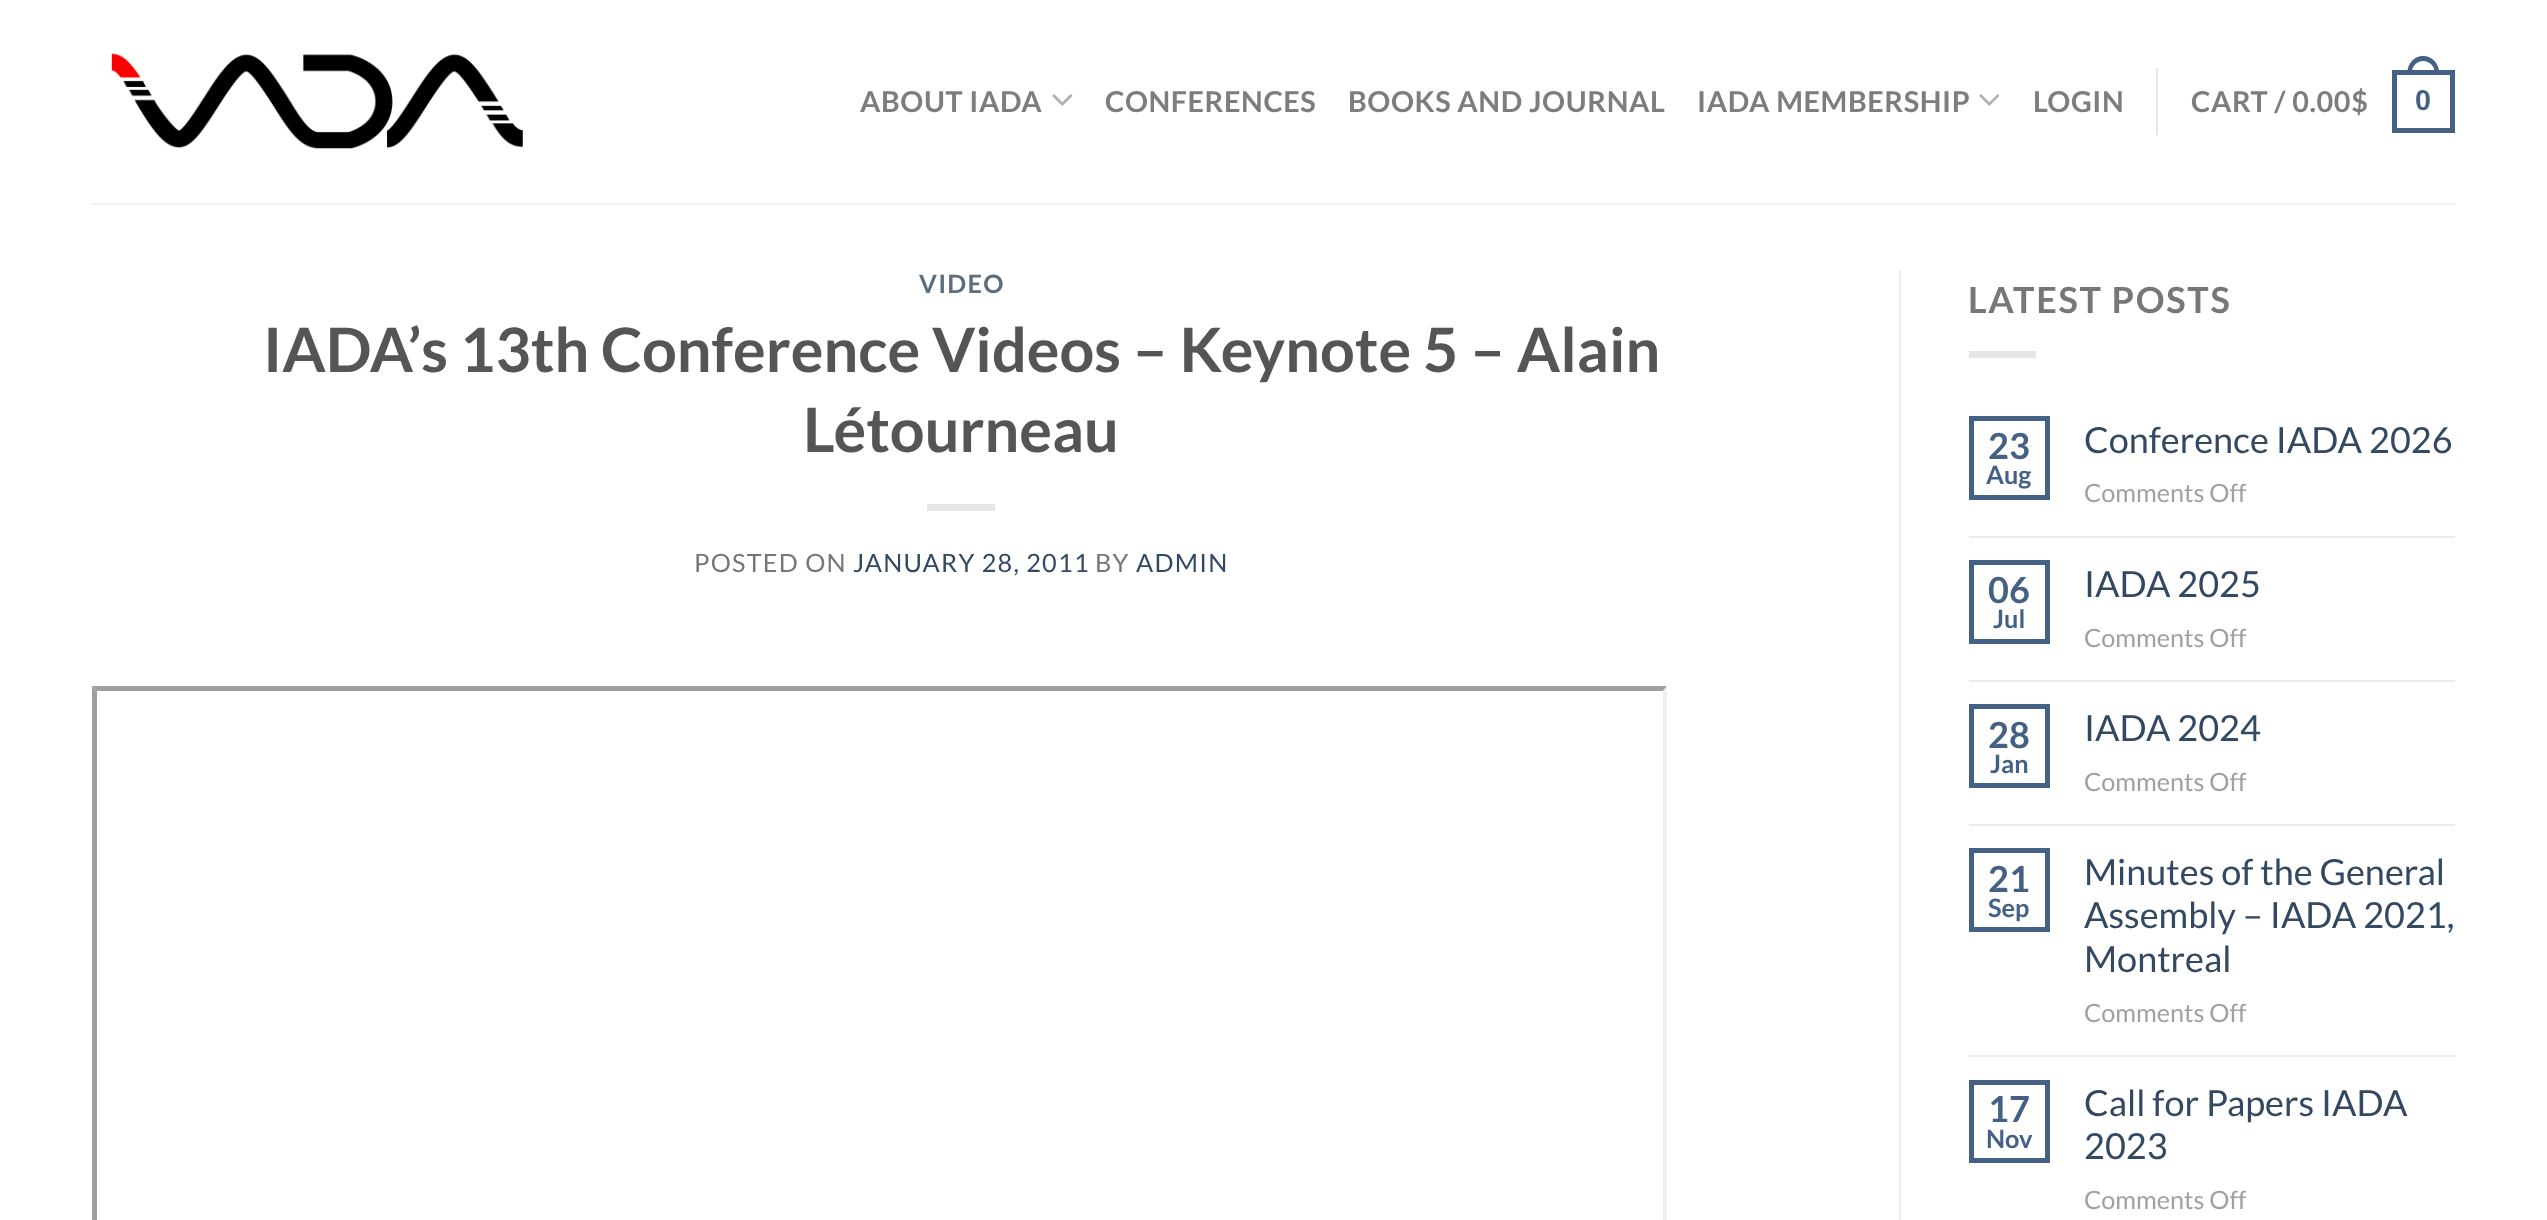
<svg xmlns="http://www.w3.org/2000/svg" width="2547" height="1220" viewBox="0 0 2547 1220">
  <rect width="100%" height="100%" fill="rgb(255,255,255)"/>
  <image x="111" y="53" width="412" height="96" href="pic1.png"/>
  <text x="860" y="112" font-family="Lato" font-size="28.75" font-weight="bold" letter-spacing="0.6" fill="rgb(125,125,125)">ABOUT IADA</text>
  <image x="1052" y="94" width="21" height="12" href="pic2.png"/>
  <g font-family="Lato" font-size="28.75" font-weight="bold" letter-spacing="0.6" fill="rgb(125,125,125)">
    <text x="1105" y="112">CONFERENCES</text>
    <text x="1348" y="112">BOOKS AND JOURNAL</text>
    <text x="1697" y="112">IADA MEMBERSHIP</text>
  </g>
  <image x="1979" y="94" width="21" height="12" href="pic2.png"/>
  <text x="2033" y="112" font-family="Lato" font-size="28.75" font-weight="bold" letter-spacing="0.6" fill="rgb(125,125,125)">LOGIN</text>
  <rect x="2156" y="68" width="2" height="67" fill="rgb(230,230,230)"/>
  <text x="2191" y="112" font-family="Lato" font-size="28.75" font-weight="bold" letter-spacing="0.6" fill="rgb(125,125,125)">CART / 0.00$</text>
  <rect x="2394.5" y="72.5" width="58" height="58" fill="none" stroke="rgb(68,96,132)" stroke-width="5"/>
  <path d="M2423 56C2432 56 2439 63.5 2439 72V74H2407.5V72C2407.5 63.5 2414.5 56 2423 56ZM2423 61C2429.5 61 2434.5 66 2434.5 72V74H2412V72C2412 66 2417 61 2423 61Z" fill="rgb(68,96,132)" fill-rule="evenodd"/>
  <text x="2415" y="110" font-family="Liberation Sans" font-size="28.75" font-weight="bold" letter-spacing="0.6" fill="rgb(68,96,132)">0</text>
  <rect x="92" y="203" width="2363" height="2" fill="rgb(241,241,241)"/>
  <text x="919" y="293" font-family="Lato" font-size="25.25" font-weight="bold" letter-spacing="1.25" fill="rgb(92,109,129)">VIDEO</text>
  <g font-family="Lato" font-size="61.2" font-weight="bold" fill="rgb(85,85,85)">
    <text x="263" y="372">IADA’s 13th Conference Videos – Keynote 5 – Alain</text>
    <text x="803" y="452">Létourneau</text>
  </g>
  <rect x="927" y="504" width="68" height="7" fill="rgb(230,230,230)"/>
  <text x="694" y="572" font-family="Lato" font-size="25.25" letter-spacing="1.25" fill="rgb(119,119,119)">POSTED ON</text>
  <text x="853" y="572" font-family="Lato" font-size="25.25" letter-spacing="1.25" fill="rgb(51,72,98)">JANUARY 28, 2011</text>
  <text x="1095" y="572" font-family="Lato" font-size="25.25" letter-spacing="1.25" fill="rgb(119,119,119)">BY</text>
  <text x="1136" y="572" font-family="Lato" font-size="25.25" letter-spacing="1.25" fill="rgb(51,72,98)">ADMIN</text>
  <path d="M92 686H1667L1663 691H97Z" fill="rgb(159,159,159)"/>
  <path d="M92 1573V686L97 691V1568Z" fill="rgb(159,159,159)"/>
  <path d="M1667 686V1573L1663 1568V691Z" fill="rgb(238,238,238)"/>
  <rect x="1899" y="270" width="2" height="950" fill="rgb(236,236,236)"/>
  <text x="1968" y="313" font-family="Lato" font-size="36" font-weight="bold" letter-spacing="1.75" fill="rgb(119,119,119)">LATEST POSTS</text>
  <rect x="1969" y="351" width="67" height="7" fill="rgb(230,230,230)"/>
  <rect x="1971.5" y="418.5" width="76" height="79" fill="none" stroke="rgb(68,96,132)" stroke-width="5"/>
  <text x="1988" y="459" font-family="Lato" font-size="36" font-weight="bold" fill="rgb(68,96,132)">23</text>
  <text x="1986" y="484" font-family="Lato" font-size="25.25" font-weight="bold" fill="rgb(68,96,132)">Aug</text>
  <text x="2084" y="453" font-family="Lato" font-size="36" fill="rgb(51,72,98)">Conference IADA 2026</text>
  <text x="2084" y="502" font-family="Lato" font-size="25.25" fill="rgb(160,160,160)">Comments Off</text>
  <rect x="1969" y="536" width="486" height="2" fill="rgb(236,236,236)"/>
  <rect x="1971.5" y="562.5" width="76" height="79" fill="none" stroke="rgb(68,96,132)" stroke-width="5"/>
  <text x="1988" y="603" font-family="Lato" font-size="36" font-weight="bold" fill="rgb(68,96,132)">06</text>
  <text x="1993" y="628" font-family="Lato" font-size="25.25" font-weight="bold" fill="rgb(68,96,132)">Jul</text>
  <text x="2084" y="597" font-family="Lato" font-size="36" fill="rgb(51,72,98)">IADA 2025</text>
  <text x="2084" y="647" font-family="Lato" font-size="25.25" fill="rgb(160,160,160)">Comments Off</text>
  <rect x="1969" y="680" width="486" height="2" fill="rgb(236,236,236)"/>
  <rect x="1971.5" y="706.5" width="76" height="79" fill="none" stroke="rgb(68,96,132)" stroke-width="5"/>
  <text x="1988" y="748" font-family="Lato" font-size="36" font-weight="bold" fill="rgb(68,96,132)">28</text>
  <text x="1990" y="773" font-family="Lato" font-size="25.25" font-weight="bold" fill="rgb(68,96,132)">Jan</text>
  <text x="2084" y="741" font-family="Lato" font-size="36" fill="rgb(51,72,98)">IADA 2024</text>
  <text x="2084" y="791" font-family="Lato" font-size="25.25" fill="rgb(160,160,160)">Comments Off</text>
  <rect x="1969" y="824" width="486" height="2" fill="rgb(236,236,236)"/>
  <rect x="1971.5" y="850.5" width="76" height="79" fill="none" stroke="rgb(68,96,132)" stroke-width="5"/>
  <text x="1988" y="892" font-family="Lato" font-size="36" font-weight="bold" fill="rgb(68,96,132)">21</text>
  <text x="1988" y="917" font-family="Lato" font-size="25.25" font-weight="bold" fill="rgb(68,96,132)">Sep</text>
  <g font-family="Lato" font-size="36" fill="rgb(51,72,98)">
    <text>
      <tspan x="2084" y="885">Minutes of the General</tspan>
      <tspan x="2084" y="928">Assembly – IADA 2021,</tspan>
      <tspan x="2084" y="972">Montreal</tspan>
    </text>
  </g>
  <text x="2084" y="1022" font-family="Lato" font-size="25.25" fill="rgb(160,160,160)">Comments Off</text>
  <rect x="1969" y="1055" width="486" height="2" fill="rgb(236,236,236)"/>
  <rect x="1971.5" y="1082.5" width="76" height="78" fill="none" stroke="rgb(68,96,132)" stroke-width="5"/>
  <text x="1988" y="1122" font-family="Lato" font-size="36" font-weight="bold" fill="rgb(68,96,132)">17</text>
  <text x="1986" y="1148" font-family="Lato" font-size="25.25" font-weight="bold" fill="rgb(68,96,132)">Nov</text>
  <g font-family="Lato" font-size="36" fill="rgb(51,72,98)">
    <text>
      <tspan x="2084" y="1116">Call for Papers IADA</tspan>
      <tspan x="2084" y="1159">2023</tspan>
    </text>
  </g>
  <text x="2084" y="1209" font-family="Lato" font-size="25.25" fill="rgb(160,160,160)">Comments Off</text>
</svg>
